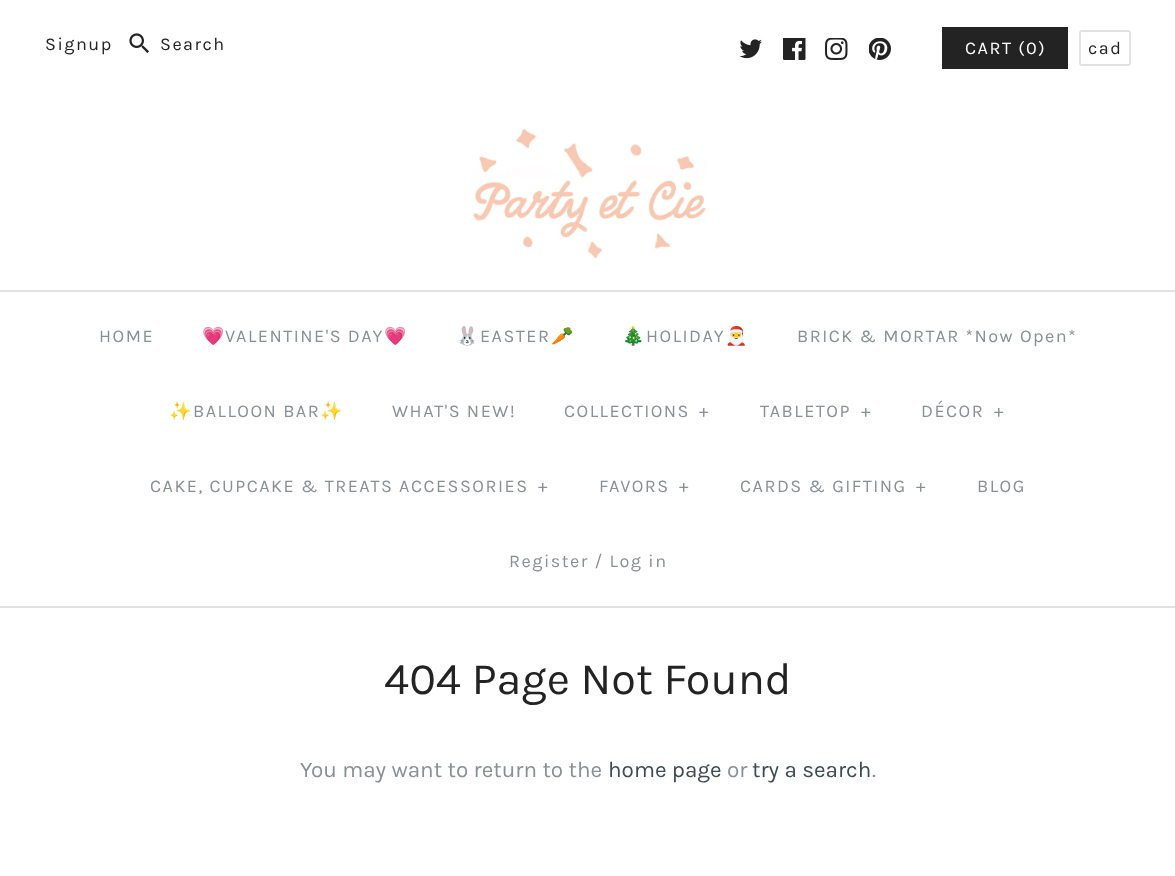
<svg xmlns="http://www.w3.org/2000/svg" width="1175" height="876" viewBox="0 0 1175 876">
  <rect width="100%" height="100%" fill="rgb(255,255,255)"/>
  <text x="45" y="50" font-family="Karla" font-size="18" letter-spacing="1.5" fill="rgb(35,35,35)">Signup</text>
  <image x="129" y="33" width="20" height="20" href="pic1.png"/>
  <text x="160" y="50" font-family="Karla" font-size="18" letter-spacing="1.5" fill="rgb(35,35,35)">Search</text>
  <image x="740" y="39" width="22" height="20" href="pic2.png"/>
  <image x="783" y="38" width="23" height="22" href="pic3.png"/>
  <image x="825" y="38" width="23" height="22" href="pic4.png"/>
  <image x="869" y="38" width="22" height="22" href="pic5.png"/>
  <rect x="942" y="27" width="126" height="42" fill="rgb(35,35,35)"/>
  <text x="965" y="54" font-family="Karla" font-size="18" letter-spacing="1.5" fill="rgb(255,255,255)">CART (0)</text>
  <rect x="1080" y="31" width="50" height="34" rx="2" fill="none" stroke="rgb(226,226,226)" stroke-width="2"/>
  <text x="1088" y="54" font-family="Karla" font-size="18" letter-spacing="1.5" fill="rgb(35,35,35)">cad</text>
  <image x="472" y="129" width="234" height="129" href="pic6.png"/>
  <rect x="0" y="606" width="1175" height="2" fill="rgb(226,226,226)"/>
  <rect x="0" y="290" width="1175" height="2" fill="rgb(226,226,226)"/>
  <text x="99" y="342" font-family="Karla" font-size="18" letter-spacing="1.5" fill="rgb(138,143,147)">HOME</text>
  <text x="202" y="342" font-family="Noto Color Emoji" font-size="18" letter-spacing="1.5" fill="rgb(138,143,147)">💗</text>
  <text x="225" y="342" font-family="Karla" font-size="18" letter-spacing="1.5" fill="rgb(138,143,147)">VALENTINE'S DAY</text>
  <g font-family="Noto Color Emoji" font-size="18" letter-spacing="1.5" fill="rgb(138,143,147)">
    <text x="384" y="342">💗</text>
    <text x="456" y="342">🐰</text>
  </g>
  <text x="480" y="342" font-family="Karla" font-size="18" letter-spacing="1.5" fill="rgb(138,143,147)">EASTER</text>
  <g font-family="Noto Color Emoji" font-size="18" letter-spacing="1.5" fill="rgb(138,143,147)">
    <text x="551" y="342">🥕</text>
    <text x="622" y="342">🎄</text>
  </g>
  <text x="646" y="342" font-family="Karla" font-size="18" letter-spacing="1.5" fill="rgb(138,143,147)">HOLIDAY</text>
  <text x="725" y="342" font-family="Noto Color Emoji" font-size="18" letter-spacing="1.5" fill="rgb(138,143,147)">🎅</text>
  <text x="797" y="342" font-family="Karla" font-size="18" letter-spacing="1.5" fill="rgb(138,143,147)">BRICK &amp; MORTAR *Now Open*</text>
  <text x="169" y="417" font-family="Noto Color Emoji" font-size="18" letter-spacing="1.5" fill="rgb(138,143,147)">✨</text>
  <text x="193" y="417" font-family="Karla" font-size="18" letter-spacing="1.5" fill="rgb(138,143,147)">BALLOON BAR</text>
  <text x="320" y="417" font-family="Noto Color Emoji" font-size="18" letter-spacing="1.5" fill="rgb(138,143,147)">✨</text>
  <g font-family="Karla" font-size="18" letter-spacing="1.5" fill="rgb(138,143,147)">
    <text x="392" y="417">WHAT'S NEW!</text>
    <text x="564" y="417">COLLECTIONS</text>
    <text x="699" y="417">+</text>
    <text x="760" y="417">TABLETOP</text>
    <text x="861" y="417">+</text>
    <text x="921" y="417">DÉCOR</text>
    <text x="994" y="417">+</text>
    <text x="150" y="492">CAKE, CUPCAKE &amp; TREATS ACCESSORIES</text>
    <text x="538" y="492">+</text>
    <text x="599" y="492">FAVORS</text>
    <text x="679" y="492">+</text>
    <text x="740" y="492">CARDS &amp; GIFTING</text>
    <text x="916" y="492">+</text>
    <text x="977" y="492">BLOG</text>
    <text x="509" y="567">Register / Log in</text>
  </g>
  <text x="384" y="694" font-family="Karla" font-size="45" fill="rgb(35,35,35)">404 Page Not Found</text>
  <text x="300" y="777" font-family="Karla" font-size="22.5" fill="rgb(138,143,147)">You may want to return to the</text>
  <text x="608" y="777" font-family="Karla" font-size="22.5" fill="rgb(61,76,79)">home page</text>
  <text x="727" y="777" font-family="Karla" font-size="22.5" fill="rgb(138,143,147)">or</text>
  <text x="752" y="777" font-family="Karla" font-size="22.5" fill="rgb(61,76,79)">try a search</text>
  <text x="872" y="777" font-family="Karla" font-size="22.5" fill="rgb(138,143,147)">.</text>
</svg>
